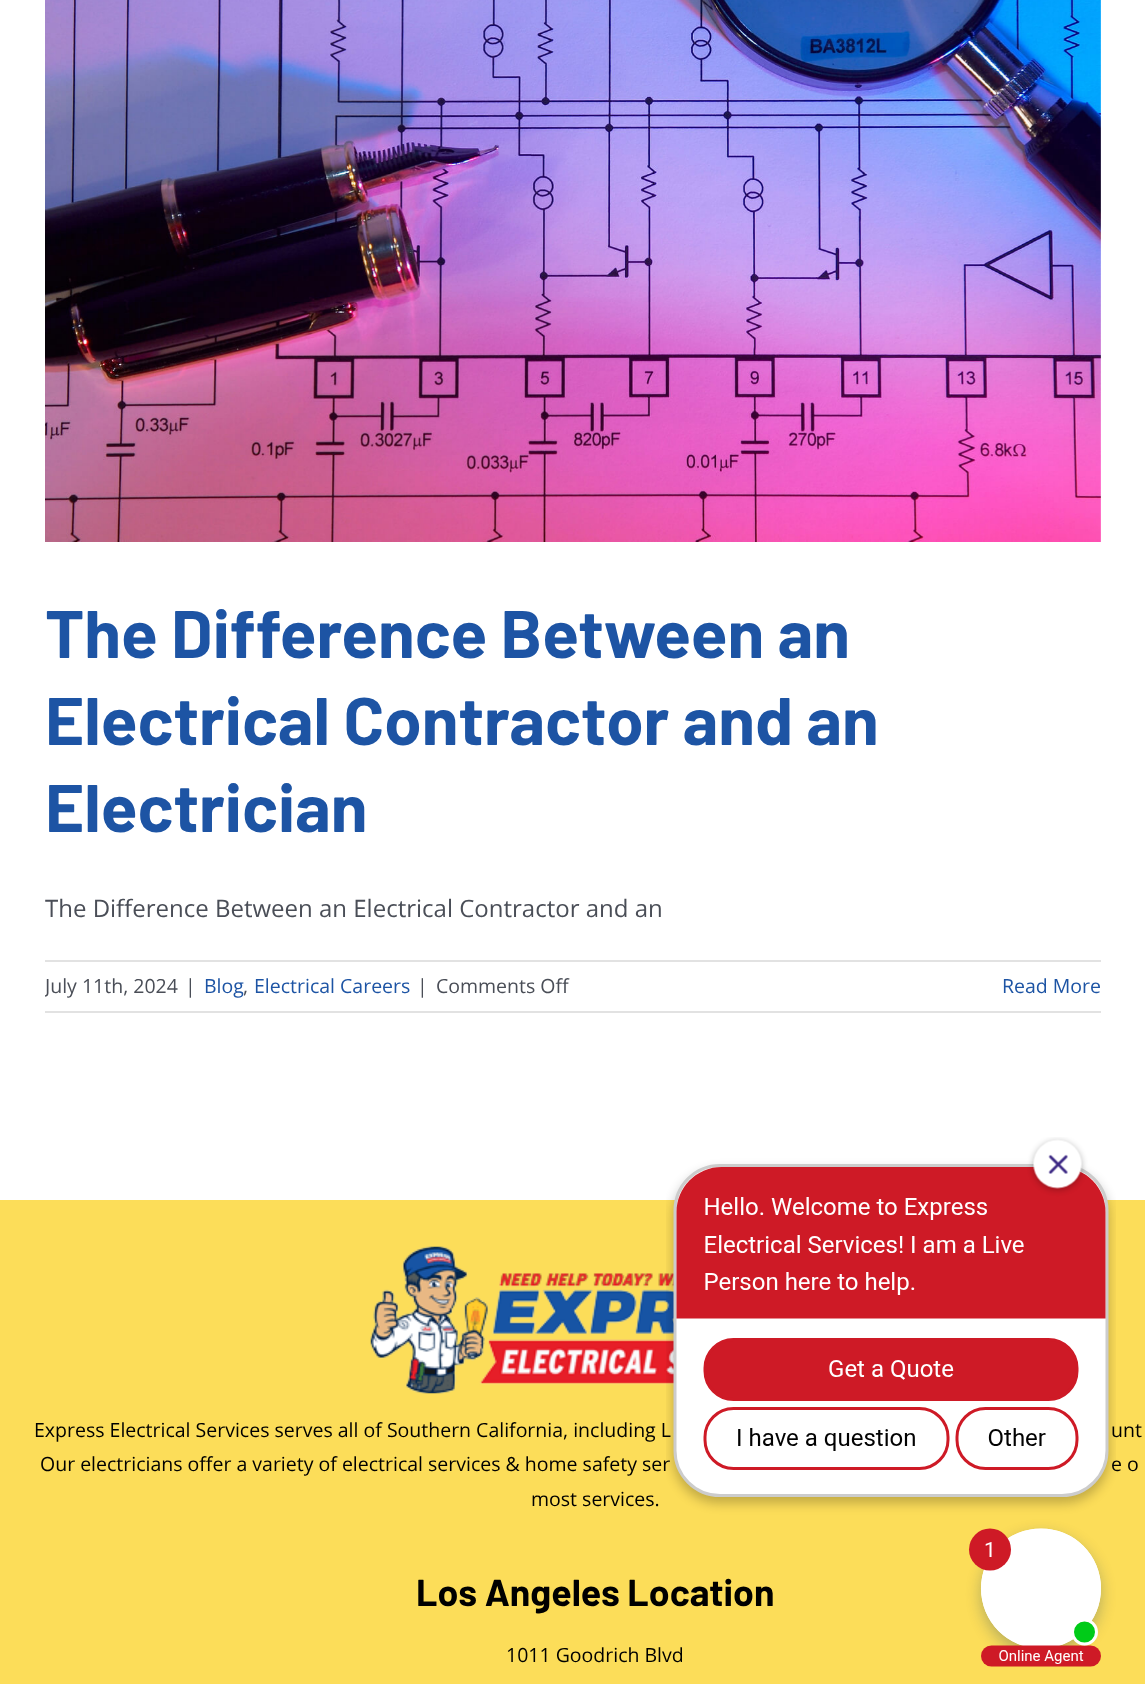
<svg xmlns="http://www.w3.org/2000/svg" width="1145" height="1684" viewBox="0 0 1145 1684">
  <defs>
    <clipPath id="clip1"><rect x="45" y="962" width="1056" height="49"/></clipPath>
  </defs>
  <rect width="100%" height="100%" fill="rgb(255,255,255)"/>
  <image x="45" y="0" width="1056" height="542" href="pic1.png"/>
  <g font-family="Barlow" font-size="67.25" font-weight="bold" fill="rgb(29,84,164)">
    <text>
      <tspan x="45" y="658">The Difference Between an</tspan>
      <tspan x="45" y="745">Electrical Contractor and an</tspan>
      <tspan x="45" y="832">Electrician</tspan>
    </text>
  </g>
  <text x="45" y="917" font-family="Open Sans" font-size="24" fill="rgb(74,78,87)">The Difference Between an Electrical Contractor and an</text>
  <rect x="45" y="960" width="1056" height="2" fill="rgb(226,226,226)"/>
  <rect x="45" y="1011" width="1056" height="2" fill="rgb(226,226,226)"/>
  <g clip-path="url(#clip1)">
    <text x="45" y="993" font-family="Open Sans" font-size="19.5" fill="rgb(74,78,87)">July 11th, 2024</text>
  </g>
  <text x="185" y="993" font-family="Open Sans" font-size="19.5" fill="rgb(74,78,87)">|</text>
  <text x="204" y="993" font-family="Open Sans" font-size="19.5" fill="rgb(29,84,164)">Blog</text>
  <text x="243" y="993" font-family="Open Sans" font-size="19.5" fill="rgb(74,78,87)">,</text>
  <text x="254" y="993" font-family="Open Sans" font-size="19.5" fill="rgb(29,84,164)">Electrical Careers</text>
  <g font-family="Open Sans" font-size="19.5" fill="rgb(74,78,87)">
    <text x="417" y="993">|</text>
    <text x="436" y="993">Comments Off</text>
  </g>
  <text x="1002" y="993" font-family="Open Sans" font-size="19.5" fill="rgb(29,84,164)">Read More</text>
  <rect x="0" y="1200" width="1145" height="484" fill="rgb(252,221,89)"/>
  <image x="370" y="1246" width="304" height="148" href="pic2.png"/>
  <g font-family="Open Sans" font-size="19.5" fill="rgb(0,0,0)">
    <text x="34" y="1437">Express Electrical Services serves all of Southern California, including L</text>
    <text x="1111" y="1437">unt</text>
    <text x="40" y="1471">Our electricians offer a variety of electrical services &amp; home safety ser</text>
    <text x="1111" y="1471">e o</text>
    <text x="531" y="1506">most services.</text>
  </g>
  <text x="416" y="1606" font-family="Barlow" font-size="37.5" font-weight="bold" fill="rgb(0,0,0)">Los Angeles Location</text>
  <text x="506" y="1662" font-family="Open Sans" font-size="19.5" fill="rgb(0,0,0)">1011 Goodrich Blvd</text>
  <image x="666" y="1137" width="450" height="530" href="pic3.png"/>
</svg>
